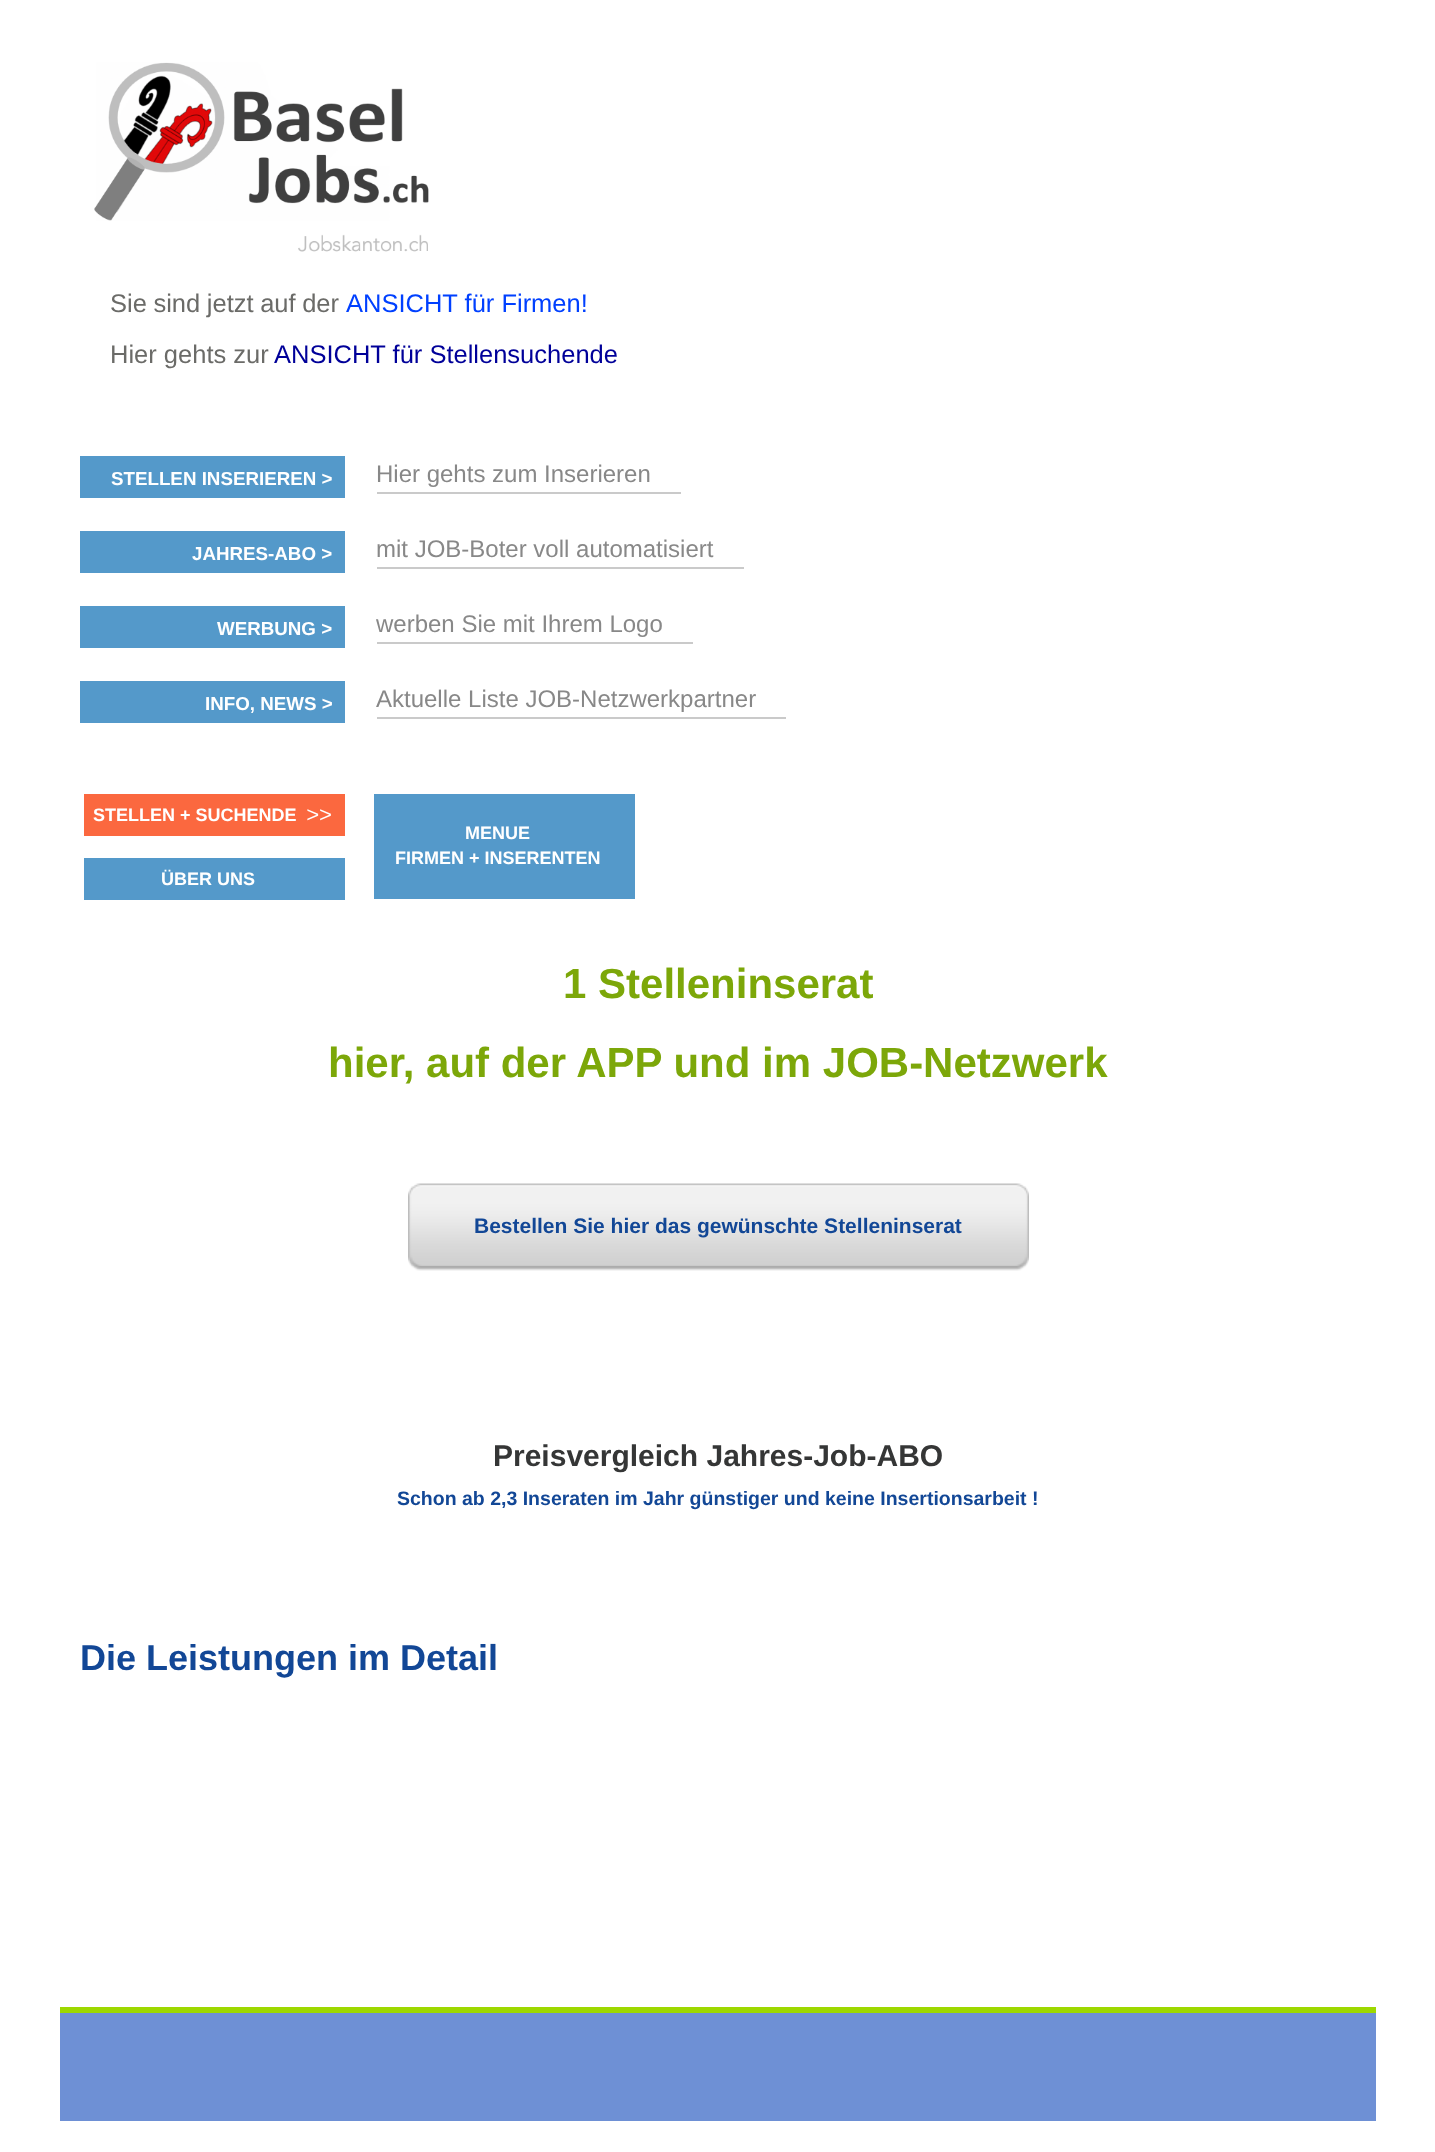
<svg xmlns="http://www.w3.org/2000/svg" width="1435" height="2152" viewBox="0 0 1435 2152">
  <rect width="100%" height="100%" fill="rgb(255,255,255)"/>
  <image x="94" y="62" width="335" height="190" href="pic1.png"/>
  <text x="110" y="312" word-spacing="-0.5" font-family="Liberation Sans" font-size="25.5" fill="rgb(107,107,104)">Sie sind jetzt auf der</text>
  <text x="346" y="312" font-family="Liberation Sans" font-size="25.5" fill="rgb(0,64,255)">ANSICHT für Firmen!</text>
  <text x="110" y="363" font-family="Liberation Sans" font-size="25.5" fill="rgb(107,107,104)">Hier gehts zur</text>
  <text x="274" y="363" font-family="Liberation Sans" font-size="25.5" fill="rgb(0,0,153)">ANSICHT für Stellensuchende</text>
  <rect x="80" y="456" width="265" height="42" fill="rgb(84,153,202)"/>
  <text x="111" y="485" font-family="Liberation Sans" font-size="18.75" font-weight="bold" fill="rgb(255,255,255)">STELLEN INSERIEREN &gt;</text>
  <rect x="377" y="492" width="304" height="2" fill="rgb(202,202,202)"/>
  <text x="376" y="482" font-family="Liberation Sans" font-size="24" fill="rgb(136,136,136)">Hier gehts zum Inserieren</text>
  <rect x="80" y="531" width="265" height="42" fill="rgb(84,153,202)"/>
  <text x="192" y="560" font-family="Liberation Sans" font-size="18.75" font-weight="bold" fill="rgb(255,255,255)">JAHRES-ABO &gt;</text>
  <rect x="377" y="567" width="367" height="2" fill="rgb(202,202,202)"/>
  <text x="376" y="557" font-family="Liberation Sans" font-size="24" fill="rgb(136,136,136)">mit JOB-Boter voll automatisiert</text>
  <rect x="80" y="606" width="265" height="42" fill="rgb(84,153,202)"/>
  <text x="217" y="635" font-family="Liberation Sans" font-size="18.75" font-weight="bold" fill="rgb(255,255,255)">WERBUNG &gt;</text>
  <rect x="377" y="642" width="316" height="2" fill="rgb(202,202,202)"/>
  <text x="376" y="632" font-family="Liberation Sans" font-size="24" fill="rgb(136,136,136)">werben Sie mit Ihrem Logo</text>
  <rect x="80" y="681" width="265" height="42" fill="rgb(84,153,202)"/>
  <text x="205" y="710" font-family="Liberation Sans" font-size="18.75" font-weight="bold" fill="rgb(255,255,255)">INFO, NEWS &gt;</text>
  <rect x="377" y="717" width="409" height="2" fill="rgb(202,202,202)"/>
  <text x="376" y="707" font-family="Liberation Sans" font-size="24" fill="rgb(136,136,136)">Aktuelle Liste JOB-Netzwerkpartner</text>
  <rect x="84" y="794" width="261" height="42" fill="rgb(251,104,63)"/>
  <text x="93" y="821" font-family="Liberation Sans" font-size="18" font-weight="bold" fill="rgb(255,255,255)">STELLEN + SUCHENDE</text>
  <text x="306" y="822" font-family="Liberation Sans" font-size="22" font-style="italic" fill="rgb(255,255,255)">&gt;&gt;</text>
  <rect x="84" y="858" width="261" height="42" fill="rgb(84,153,202)"/>
  <text x="161" y="885" font-family="Liberation Sans" font-size="18" font-weight="bold" fill="rgb(255,255,255)">ÜBER UNS</text>
  <rect x="374" y="794" width="261" height="105" fill="rgb(84,153,202)"/>
  <g font-family="Liberation Sans" font-size="18" font-weight="bold" fill="rgb(255,255,255)">
    <text x="465" y="839">MENUE</text>
    <text x="395" y="864">FIRMEN + INSERENTEN</text>
  </g>
  <g font-family="Liberation Sans" font-size="42" font-weight="bold" fill="rgb(124,167,9)">
    <text x="563" y="998">1 Stelleninserat</text>
    <text x="328" y="1077">hier, auf der APP und im JOB-Netzwerk</text>
  </g>
  <image x="408" y="1183" width="621" height="88" href="pic2.png"/>
  <text x="474" y="1233" font-family="Liberation Sans" font-size="21" font-weight="bold" fill="rgb(18,71,150)">Bestellen Sie hier das gewünschte Stelleninserat</text>
  <text x="493" y="1466" font-family="Liberation Sans" font-size="30" font-weight="bold" fill="rgb(53,54,54)">Preisvergleich Jahres-Job-ABO</text>
  <text x="397" y="1505" font-family="Liberation Sans" font-size="19.5" font-weight="bold" fill="rgb(18,71,150)">Schon ab 2,3 Inseraten im Jahr günstiger und keine Insertionsarbeit !</text>
  <text x="80" y="1670" font-family="Liberation Sans" font-size="36" font-weight="bold" fill="rgb(18,71,150)">Die Leistungen im Detail</text>
  <rect x="60" y="2013" width="1316" height="108" fill="rgb(110,144,213)"/>
  <rect x="60" y="2007" width="1316" height="6" fill="rgb(157,216,0)"/>
</svg>
